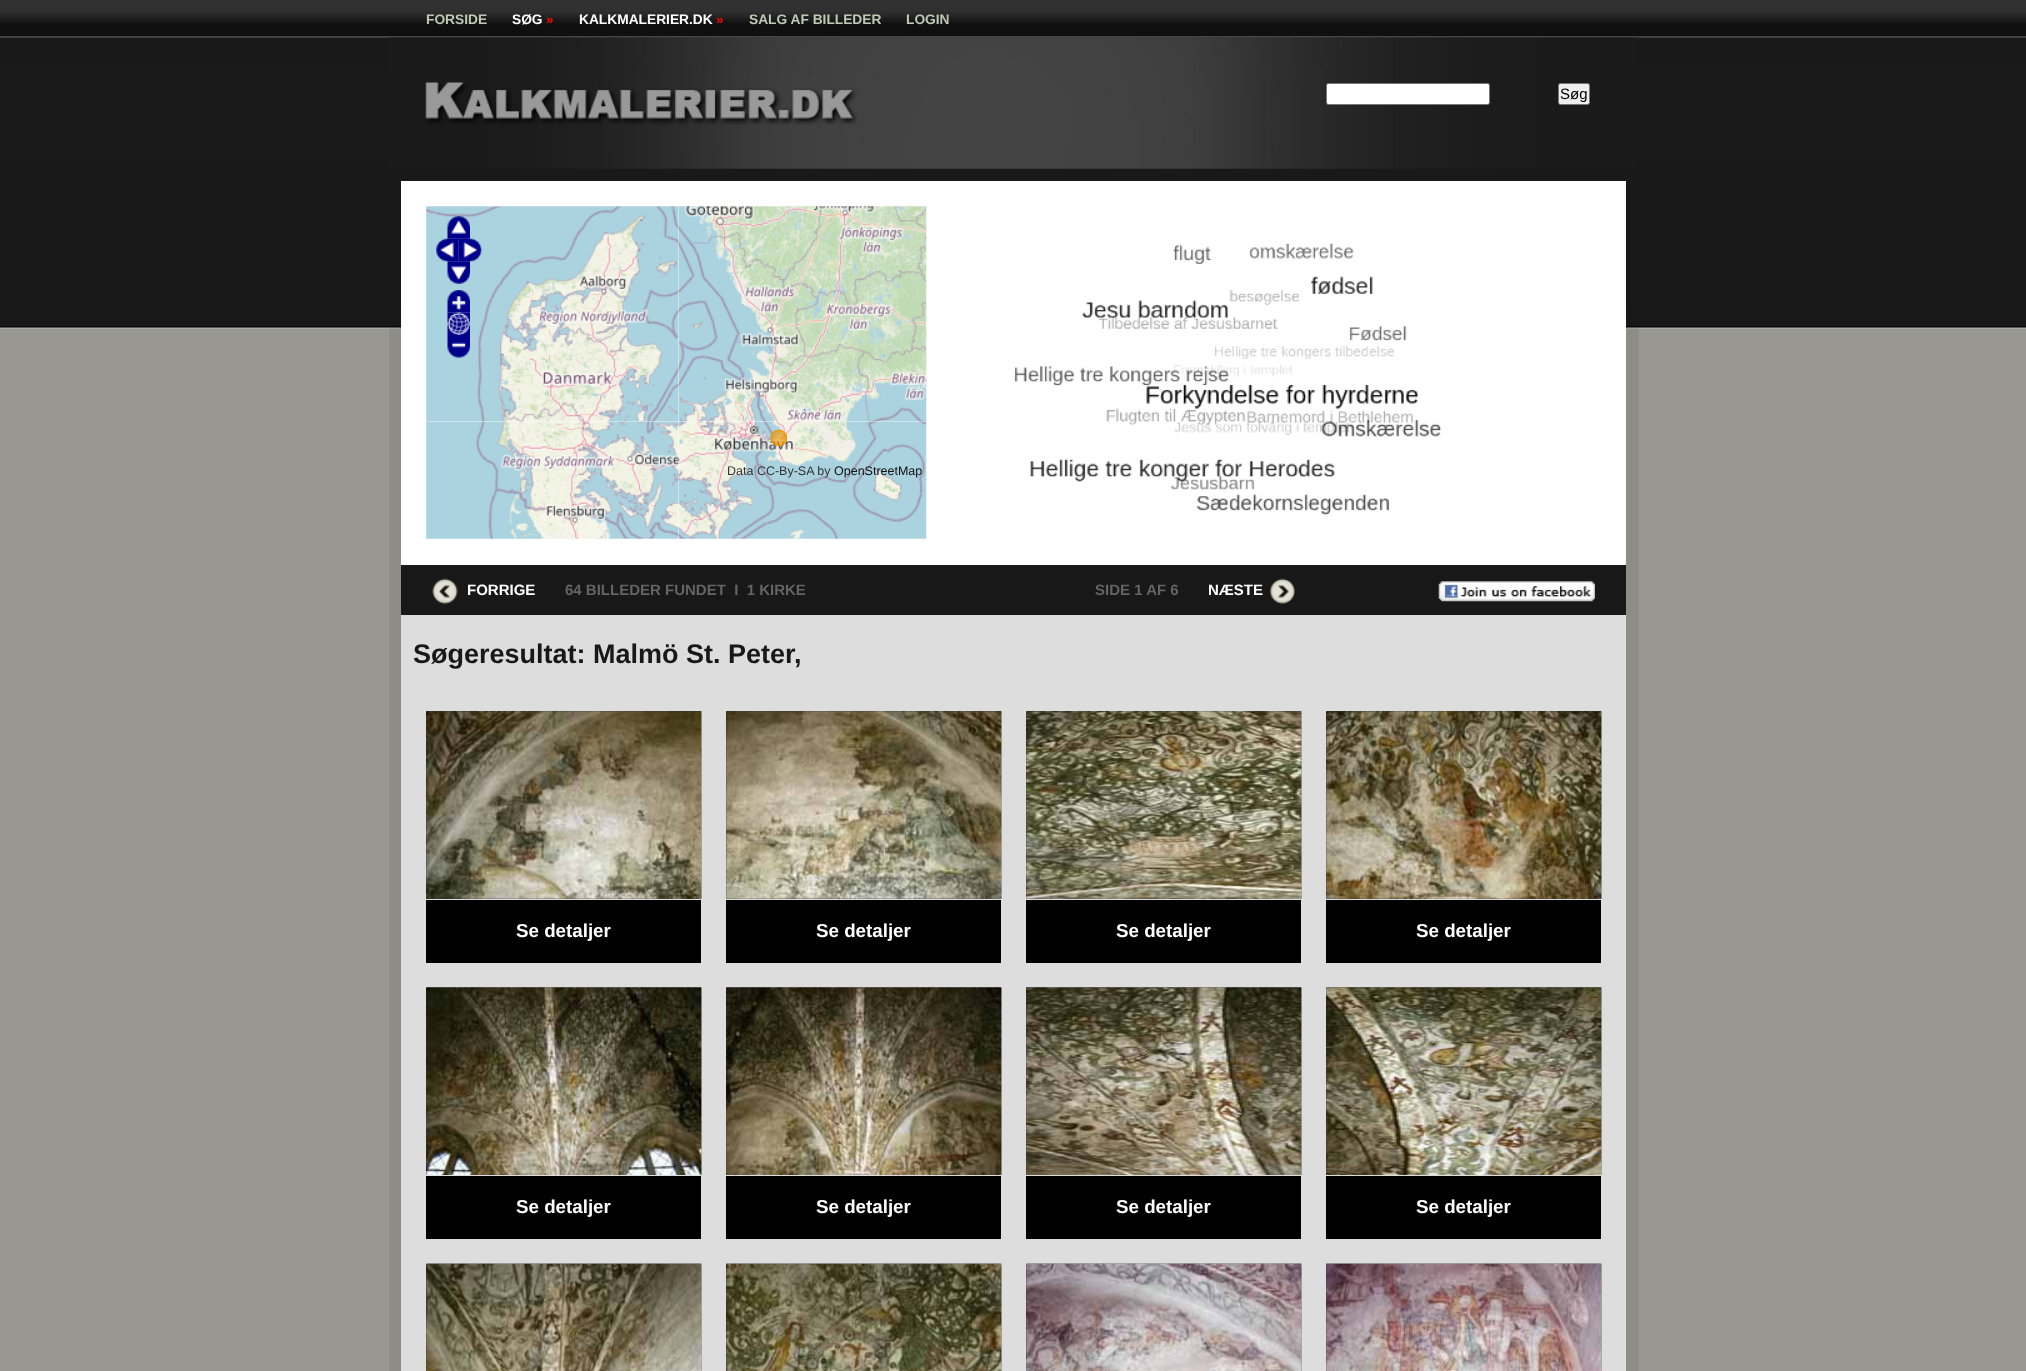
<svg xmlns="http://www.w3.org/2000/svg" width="2026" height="1371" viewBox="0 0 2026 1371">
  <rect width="100%" height="100%" fill="rgb(152,151,145)"/>
  <image x="0" y="0" width="2026" height="446" href="pic1.png"/>
  <text x="426" y="24" font-family="Liberation Sans" font-size="13.75" font-weight="bold" fill="rgb(191,201,180)">FORSIDE</text>
  <text x="512" y="24" font-family="Liberation Sans" font-size="13.75" font-weight="bold" fill="rgb(255,255,255)">SØG</text>
  <text x="546" y="24" font-family="Liberation Sans" font-size="13.75" font-weight="bold" fill="rgb(255,0,0)">»</text>
  <text x="579" y="24" font-family="Liberation Sans" font-size="13.75" font-weight="bold" fill="rgb(255,255,255)">KALKMALERIER.DK</text>
  <text x="716" y="24" font-family="Liberation Sans" font-size="13.75" font-weight="bold" fill="rgb(255,0,0)">»</text>
  <g font-family="Liberation Sans" font-size="13.75" font-weight="bold" fill="rgb(191,201,180)">
    <text x="749" y="24">SALG AF BILLEDER</text>
    <text x="906" y="24">LOGIN</text>
  </g>
  <image x="388" y="37" width="1251" height="132" href="pic2.png"/>
  <image x="425" y="82" width="432" height="43" href="pic3.png"/>
  <rect x="1326.5" y="83.5" width="163" height="21" rx="2" fill="rgb(255,255,255)" stroke="rgb(118,118,118)"/>
  <rect x="1558.5" y="83.5" width="31" height="21" rx="2" fill="rgb(239,239,239)" stroke="rgb(118,118,118)"/>
  <text x="1560" y="99" font-family="Liberation Sans" font-size="15" fill="rgb(0,0,0)">Søg</text>
  <image x="389" y="327" width="1250" height="1044" href="pic4.png"/>
  <rect x="401" y="181" width="1225" height="384" fill="rgb(255,255,255)"/>
  <image x="678" y="421" width="249" height="118" href="pic8.png"/>
  <image x="426" y="421" width="253" height="118" href="pic7.png"/>
  <image x="678" y="206" width="249" height="216" href="pic6.png"/>
  <image x="426" y="206" width="253" height="215" href="pic5.png"/>
  <circle cx="779" cy="438" r="7.5" fill="rgba(238,153,0,0.4)" stroke="rgb(238,153,0)" stroke-width="1.2"/>
  <image x="447" y="216" width="23" height="23" href="pic9.png"/>
  <image x="436" y="238" width="23" height="24" href="pic10.png"/>
  <image x="458" y="238" width="24" height="24" href="pic11.png"/>
  <image x="447" y="261" width="23" height="23" href="pic12.png"/>
  <image x="447" y="290" width="23" height="23" href="pic13.png"/>
  <image x="447" y="312" width="23" height="23" href="pic14.png"/>
  <image x="447" y="335" width="23" height="23" href="pic15.png"/>
  <text x="727" y="475" font-family="Liberation Sans" font-size="12.5" fill="rgb(51,51,51)">Data CC-By-SA by</text>
  <text x="834" y="475" font-family="Liberation Sans" font-size="12.5" fill="rgb(17,17,17)">OpenStreetMap</text>
  <image x="1014" y="243" width="428" height="273" href="pic16.png"/>
  <rect x="401" y="565" width="1225" height="50" fill="rgb(24,24,24)"/>
  <image x="432" y="578" width="26" height="26" href="pic17.png"/>
  <text x="467" y="595" font-family="Liberation Sans" font-size="15" font-weight="bold" fill="rgb(255,255,255)">FORRIGE</text>
  <g font-family="Liberation Sans" font-size="15" font-weight="bold" fill="rgb(100,100,100)">
    <text x="565" y="595" xml:space="preserve">64 BILLEDER FUNDET  I  1 KIRKE</text>
    <text x="1095" y="595">SIDE 1 AF 6</text>
  </g>
  <text x="1208" y="595" font-family="Liberation Sans" font-size="15" font-weight="bold" fill="rgb(255,255,255)">NÆSTE</text>
  <image x="1270" y="578" width="25" height="26" href="pic18.png"/>
  <image x="1438" y="581" width="157" height="21" href="pic19.png"/>
  <rect x="401" y="615" width="1225" height="756" fill="rgb(221,221,221)"/>
  <text x="413" y="663" font-family="Liberation Sans" font-size="27" font-weight="bold" fill="rgb(24,24,24)">Søgeresultat: Malmö St. Peter,</text>
  <image x="426" y="711" width="276" height="188" href="pic20.png"/>
  <image x="426" y="711" width="276" height="188" href="pic21.png"/>
  <rect x="426" y="900" width="275" height="63" fill="rgb(0,0,0)"/>
  <text x="516" y="937" font-family="Liberation Sans" font-size="18.75" font-weight="bold" fill="rgb(255,255,255)">Se detaljer</text>
  <image x="726" y="711" width="276" height="188" href="pic20.png"/>
  <image x="726" y="711" width="276" height="188" href="pic22.png"/>
  <rect x="726" y="900" width="275" height="63" fill="rgb(0,0,0)"/>
  <text x="816" y="937" font-family="Liberation Sans" font-size="18.75" font-weight="bold" fill="rgb(255,255,255)">Se detaljer</text>
  <image x="1026" y="711" width="276" height="188" href="pic20.png"/>
  <image x="1026" y="711" width="276" height="188" href="pic23.png"/>
  <rect x="1026" y="900" width="275" height="63" fill="rgb(0,0,0)"/>
  <text x="1116" y="937" font-family="Liberation Sans" font-size="18.75" font-weight="bold" fill="rgb(255,255,255)">Se detaljer</text>
  <image x="1326" y="711" width="276" height="188" href="pic20.png"/>
  <image x="1326" y="711" width="276" height="188" href="pic24.png"/>
  <rect x="1326" y="900" width="275" height="63" fill="rgb(0,0,0)"/>
  <text x="1416" y="937" font-family="Liberation Sans" font-size="18.75" font-weight="bold" fill="rgb(255,255,255)">Se detaljer</text>
  <image x="426" y="987" width="276" height="188" href="pic25.png"/>
  <image x="426" y="987" width="276" height="188" href="pic26.png"/>
  <rect x="426" y="1176" width="275" height="63" fill="rgb(0,0,0)"/>
  <text x="516" y="1213" font-family="Liberation Sans" font-size="18.75" font-weight="bold" fill="rgb(255,255,255)">Se detaljer</text>
  <image x="726" y="987" width="276" height="188" href="pic25.png"/>
  <image x="726" y="987" width="276" height="188" href="pic27.png"/>
  <rect x="726" y="1176" width="275" height="63" fill="rgb(0,0,0)"/>
  <text x="816" y="1213" font-family="Liberation Sans" font-size="18.75" font-weight="bold" fill="rgb(255,255,255)">Se detaljer</text>
  <image x="1026" y="987" width="276" height="188" href="pic25.png"/>
  <image x="1026" y="987" width="276" height="188" href="pic28.png"/>
  <rect x="1026" y="1176" width="275" height="63" fill="rgb(0,0,0)"/>
  <text x="1116" y="1213" font-family="Liberation Sans" font-size="18.75" font-weight="bold" fill="rgb(255,255,255)">Se detaljer</text>
  <image x="1326" y="987" width="276" height="188" href="pic25.png"/>
  <image x="1326" y="987" width="276" height="188" href="pic29.png"/>
  <rect x="1326" y="1176" width="275" height="63" fill="rgb(0,0,0)"/>
  <text x="1416" y="1213" font-family="Liberation Sans" font-size="18.75" font-weight="bold" fill="rgb(255,255,255)">Se detaljer</text>
  <image x="426" y="1263" width="276" height="108" href="pic30.png"/>
  <image x="426" y="1263" width="276" height="108" href="pic31.png"/>
  <image x="726" y="1263" width="276" height="108" href="pic30.png"/>
  <image x="726" y="1263" width="276" height="108" href="pic32.png"/>
  <image x="1026" y="1263" width="276" height="108" href="pic30.png"/>
  <image x="1026" y="1263" width="276" height="108" href="pic33.png"/>
  <image x="1326" y="1263" width="276" height="108" href="pic30.png"/>
  <image x="1326" y="1263" width="276" height="108" href="pic34.png"/>
</svg>
